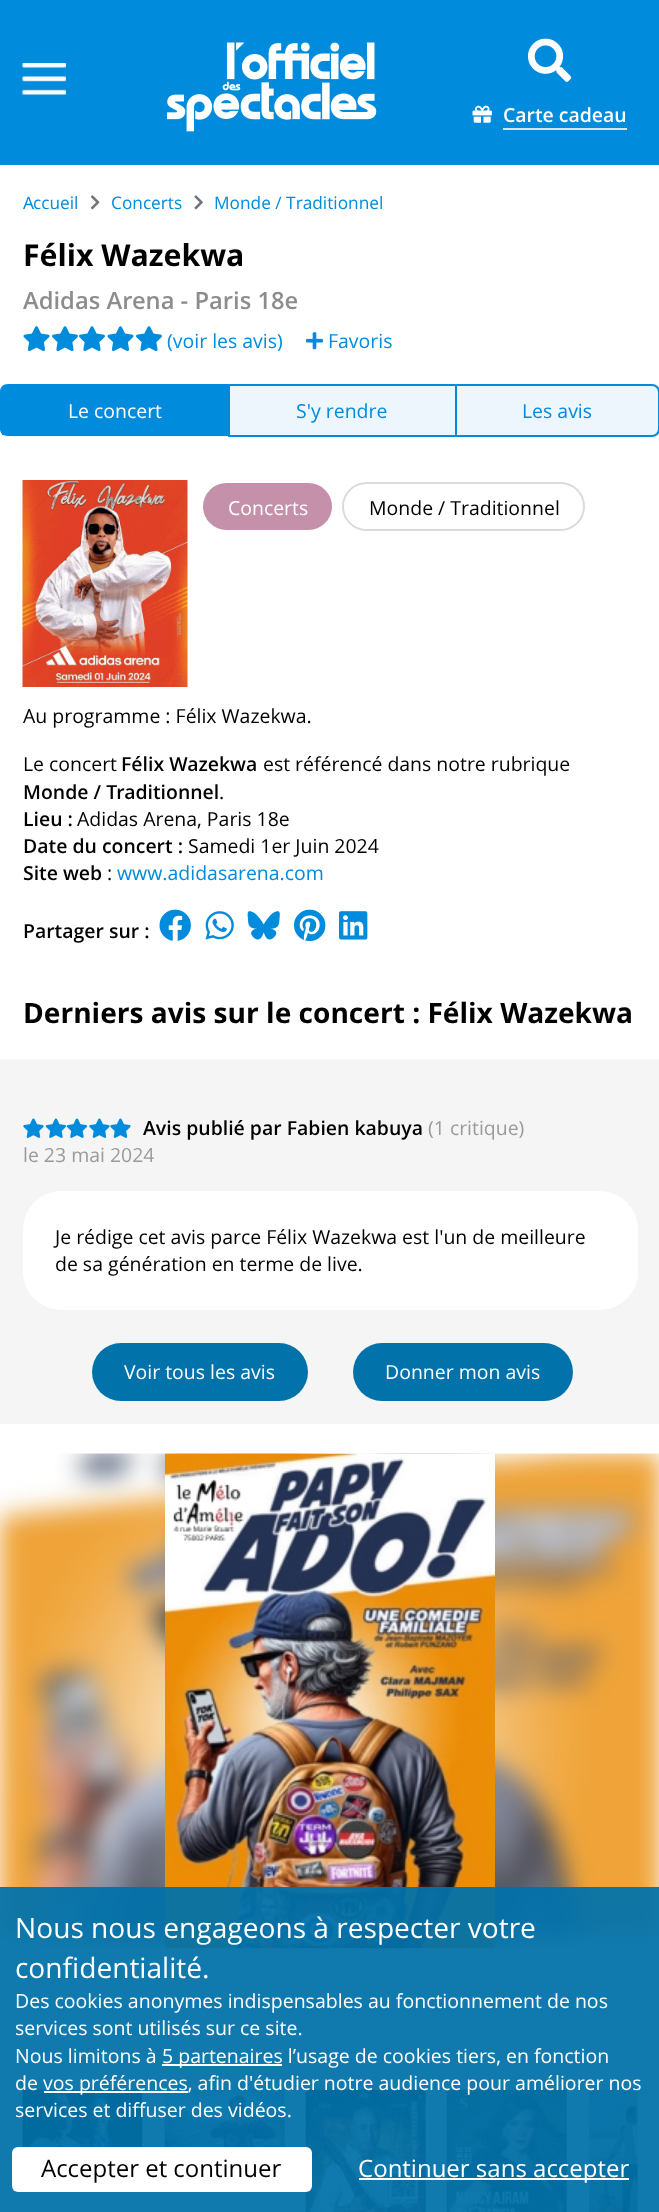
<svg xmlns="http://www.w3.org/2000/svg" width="659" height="2212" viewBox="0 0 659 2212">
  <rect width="100%" height="100%" fill="rgb(255,255,255)"/>
  <rect x="0" y="0" width="659" height="165" fill="rgb(0,139,220)"/>
  <image x="22" y="63" width="44" height="32" href="pic1.png"/>
  <image x="167" y="42" width="210" height="90" href="pic2.png"/>
  <image x="528" y="38" width="44" height="44" href="pic3.png"/>
  <image x="472" y="105" width="20" height="18" href="pic4.png"/>
  <text x="503" y="122" font-family="Open Sans" font-size="19.45" font-weight="600" fill="rgb(255,255,255)">Carte cadeau</text>
  <rect x="503" y="128" width="124" height="2" fill="rgb(222,226,230)"/>
  <text x="23" y="209" font-family="Noto Sans" font-size="17.25" fill="rgb(0,139,220)">A</text>
  <text x="33" y="209" font-family="Open Sans" font-size="17.25" fill="rgb(0,139,220)">ccueil</text>
  <image x="90" y="195" width="10" height="15" href="pic5.png"/>
  <text x="111" y="209" font-family="Open Sans" font-size="17.25" fill="rgb(0,139,220)">Concerts</text>
  <image x="194" y="195" width="9" height="15" href="pic6.png"/>
  <text x="214" y="209" font-family="Open Sans" font-size="17.25" fill="rgb(0,139,220)">Monde / Traditionnel</text>
  <text x="23" y="266" font-family="Open Sans" font-size="30.25" font-weight="bold" fill="rgb(0,0,0)">Félix Wazekwa</text>
  <text x="23" y="309" font-family="Open Sans" font-size="23.75" font-weight="600" fill="rgb(141,141,141)">Adidas Arena - Paris 18e</text>
  <image x="23" y="326" width="27" height="26" href="pic7.png"/>
  <image x="52" y="326" width="26" height="26" href="pic8.png"/>
  <image x="79" y="326" width="26" height="26" href="pic8.png"/>
  <image x="107" y="326" width="27" height="26" href="pic7.png"/>
  <image x="136" y="326" width="26" height="26" href="pic8.png"/>
  <text x="167" y="348" font-family="Open Sans" font-size="19.45" fill="rgb(0,139,220)">(voir les avis)</text>
  <image x="306" y="332" width="17" height="18" href="pic9.png"/>
  <text x="328" y="348" font-family="Open Sans" font-size="19.45" fill="rgb(0,139,220)">Favoris</text>
  <path d="M8 384H228V437H8C3.5 437 0 433.5 0 429V392C0 387.5 3.5 384 8 384Z" fill="rgb(236,246,252)"/>
  <path d="M8 384H228V436H8C3 436 0 433 0 429V392C0 387 3 384 8 384ZM8 386H228V435H8C4 435 2 432 2 429V392C2 388 4 386 8 386Z" fill="rgb(0,139,220)" fill-rule="evenodd"/>
  <rect x="2" y="386" width="226" height="49" fill="rgb(0,139,220)"/>
  <text x="68" y="418" font-family="Open Sans" font-size="19.45" fill="rgb(255,255,255)">Le concert</text>
  <rect x="230" y="386" width="225" height="49" fill="rgb(236,246,252)"/>
  <rect x="228" y="384" width="227" height="2" fill="rgb(0,139,220)"/>
  <rect x="228" y="435" width="227" height="2" fill="rgb(0,139,220)"/>
  <rect x="228" y="384" width="2" height="53" fill="rgb(0,139,220)"/>
  <text x="296" y="418" font-family="Open Sans" font-size="19.45" fill="rgb(0,139,220)">S'y rendre</text>
  <path d="M456 385H652C656 385 659 388 659 392V429C659 433 656 436 652 436H456Z" fill="rgb(236,246,252)" stroke="rgb(0,139,220)" stroke-width="2"/>
  <text x="522" y="418" font-family="Open Sans" font-size="19.45" fill="rgb(0,139,220)">Les avis</text>
  <image x="22" y="480" width="166" height="207" href="pic10.png"/>
  <rect x="203" y="483" width="129" height="47" rx="23.5" fill="rgb(196,144,170)"/>
  <text x="228" y="515" font-family="Open Sans" font-size="19.45" fill="rgb(255,255,255)">Concerts</text>
  <rect x="343" y="483" width="241" height="47" rx="23.5" fill="none" stroke="rgb(219,219,220)" stroke-width="2"/>
  <g font-family="Open Sans" font-size="19.45" fill="rgb(0,0,0)">
    <text x="369" y="515">Monde / Traditionnel</text>
    <text x="23" y="723">Au programme : Félix Wazekwa.</text>
    <text x="23" y="771">Le concert</text>
  </g>
  <text x="121" y="771" font-family="Open Sans" font-size="19.45" font-weight="600" fill="rgb(0,0,0)">Félix Wazekwa</text>
  <text x="263" y="771" font-family="Open Sans" font-size="19.45" fill="rgb(0,0,0)">est référencé dans notre rubrique</text>
  <text x="23" y="799" font-family="Open Sans" font-size="19.45" font-weight="600" fill="rgb(0,0,0)">Monde / Traditionnel</text>
  <text x="219" y="799" font-family="Open Sans" font-size="19.45" fill="rgb(0,0,0)">.</text>
  <text x="23" y="826" font-family="Open Sans" font-size="19.45" font-weight="600" fill="rgb(0,0,0)">Lieu :</text>
  <text x="77" y="826" font-family="Open Sans" font-size="19.45" fill="rgb(0,0,0)">Adidas Arena, Paris 18e</text>
  <text x="23" y="853" font-family="Open Sans" font-size="19.45" font-weight="600" fill="rgb(0,0,0)">Date du concert :</text>
  <text x="188" y="853" font-family="Open Sans" font-size="19.45" fill="rgb(0,0,0)">Samedi 1er Juin 2024</text>
  <text x="23" y="880" font-family="Open Sans" font-size="19.45" font-weight="600" fill="rgb(0,0,0)">Site web</text>
  <text x="107" y="880" font-family="Open Sans" font-size="19.45" fill="rgb(0,0,0)">:</text>
  <text x="117" y="880" font-family="Open Sans" font-size="19.45" fill="rgb(0,139,220)">www.adidasarena.com</text>
  <text x="23" y="938" font-family="Open Sans" font-size="19.45" font-weight="600" fill="rgb(0,0,0)">Partager sur :</text>
  <image x="159" y="909" width="32" height="32" href="pic11.png"/>
  <image x="205" y="911" width="29" height="29" href="pic12.png"/>
  <image x="247" y="911" width="33" height="29" href="pic13.png"/>
  <image x="294" y="909" width="32" height="32" href="pic14.png"/>
  <image x="339" y="911" width="29" height="29" href="pic15.png"/>
  <text x="23" y="1023" font-family="Open Sans" font-size="28.1" font-weight="bold" fill="rgb(0,0,0)">Derniers avis sur le concert : Félix Wazekwa</text>
  <rect x="0" y="1059" width="659" height="365" fill="rgb(245,245,245)"/>
  <image x="23" y="1118" width="21" height="20" href="pic16.png"/>
  <image x="45" y="1118" width="22" height="20" href="pic17.png"/>
  <image x="66" y="1118" width="22" height="20" href="pic18.png"/>
  <image x="89" y="1118" width="21" height="20" href="pic16.png"/>
  <image x="110" y="1118" width="21" height="20" href="pic16.png"/>
  <text x="143" y="1135" font-family="Open Sans" font-size="19.45" font-weight="600" fill="rgb(0,0,0)">Avis publié par Fabien kabuya</text>
  <g font-family="Open Sans" font-size="19.45" fill="rgb(154,154,154)">
    <text x="428" y="1135">(1 critique)</text>
    <text x="23" y="1162">le 23 mai 2024</text>
  </g>
  <rect x="23" y="1191" width="615" height="119" rx="38" fill="rgb(255,255,255)"/>
  <g font-family="Open Sans" font-size="19.45" fill="rgb(0,0,0)">
    <text>
      <tspan x="55" y="1244">Je rédige cet avis parce Félix Wazekwa est l'un de meilleure</tspan>
      <tspan x="55" y="1271">de sa génération en terme de live.</tspan>
    </text>
  </g>
  <rect x="92" y="1343" width="216" height="58" rx="29" fill="rgb(1,114,170)"/>
  <text x="124" y="1379" font-family="Open Sans" font-size="19.45" fill="rgb(255,255,255)">Voir tous les avis</text>
  <rect x="353" y="1343" width="220" height="58" rx="29" fill="rgb(1,114,170)"/>
  <text x="385" y="1379" font-family="Open Sans" font-size="19.45" fill="rgb(255,255,255)">Donner mon avis</text>
  <image x="0" y="1453" width="659" height="496" href="pic19.png"/>
  <image x="165" y="1453" width="330" height="496" href="pic20.png"/>
  <rect x="0" y="1979" width="659" height="233" fill="rgb(245,245,245)"/>
  <image x="22" y="2089" width="121" height="58" href="pic21.png"/>
  <image x="164" y="2089" width="121" height="58" href="pic22.png"/>
  <image x="305" y="2089" width="121" height="123" href="pic23.png"/>
  <image x="446" y="2089" width="121" height="123" href="pic24.png"/>
  <image x="589" y="2089" width="49" height="123" href="pic25.png"/>
  <rect x="0" y="1887" width="659" height="325" fill="rgba(1,114,170,0.94)"/>
  <g font-family="Open Sans" font-size="28.1" fill="rgb(255,255,255)">
    <text>
      <tspan x="15" y="1938">Nous nous engageons à respecter votre</tspan>
      <tspan x="15" y="1978">confidentialité.</tspan>
    </text>
  </g>
  <g font-family="Open Sans" font-size="19.5" fill="rgb(255,255,255)">
    <text>
      <tspan x="15" y="2008">Des cookies anonymes indispensables au fonctionnement de nos</tspan>
      <tspan x="15" y="2035">services sont utilisés sur ce site.</tspan>
      <tspan x="15" y="2063">Nous limitons à</tspan>
    </text>
  </g>
  <rect x="162" y="2064" width="120" height="2" fill="rgb(255,255,255)"/>
  <g font-family="Open Sans" font-size="19.5" fill="rgb(255,255,255)">
    <text x="162" y="2063">5 partenaires l’usage de cookies tiers, en fonction</text>
    <text x="15" y="2090">de</text>
  </g>
  <rect x="44" y="2091" width="144" height="2" fill="rgb(255,255,255)"/>
  <g font-family="Open Sans" font-size="19.5" fill="rgb(255,255,255)">
    <text x="43" y="2090">vos préférences, afin d'étudier notre audience pour améliorer nos</text>
    <text x="15" y="2117">services et diffuser des vidéos.</text>
  </g>
  <rect x="12" y="2147" width="300" height="45" rx="6" fill="rgb(255,255,255)"/>
  <text x="41" y="2177" font-family="Open Sans" font-size="24" fill="rgb(0,0,0)">Accepter et continuer</text>
  <rect x="359" y="2178" width="270" height="2" fill="rgb(255,255,255)"/>
  <text x="358" y="2177" font-family="Open Sans" font-size="24" fill="rgb(255,255,255)">Continuer sans accepter</text>
</svg>
